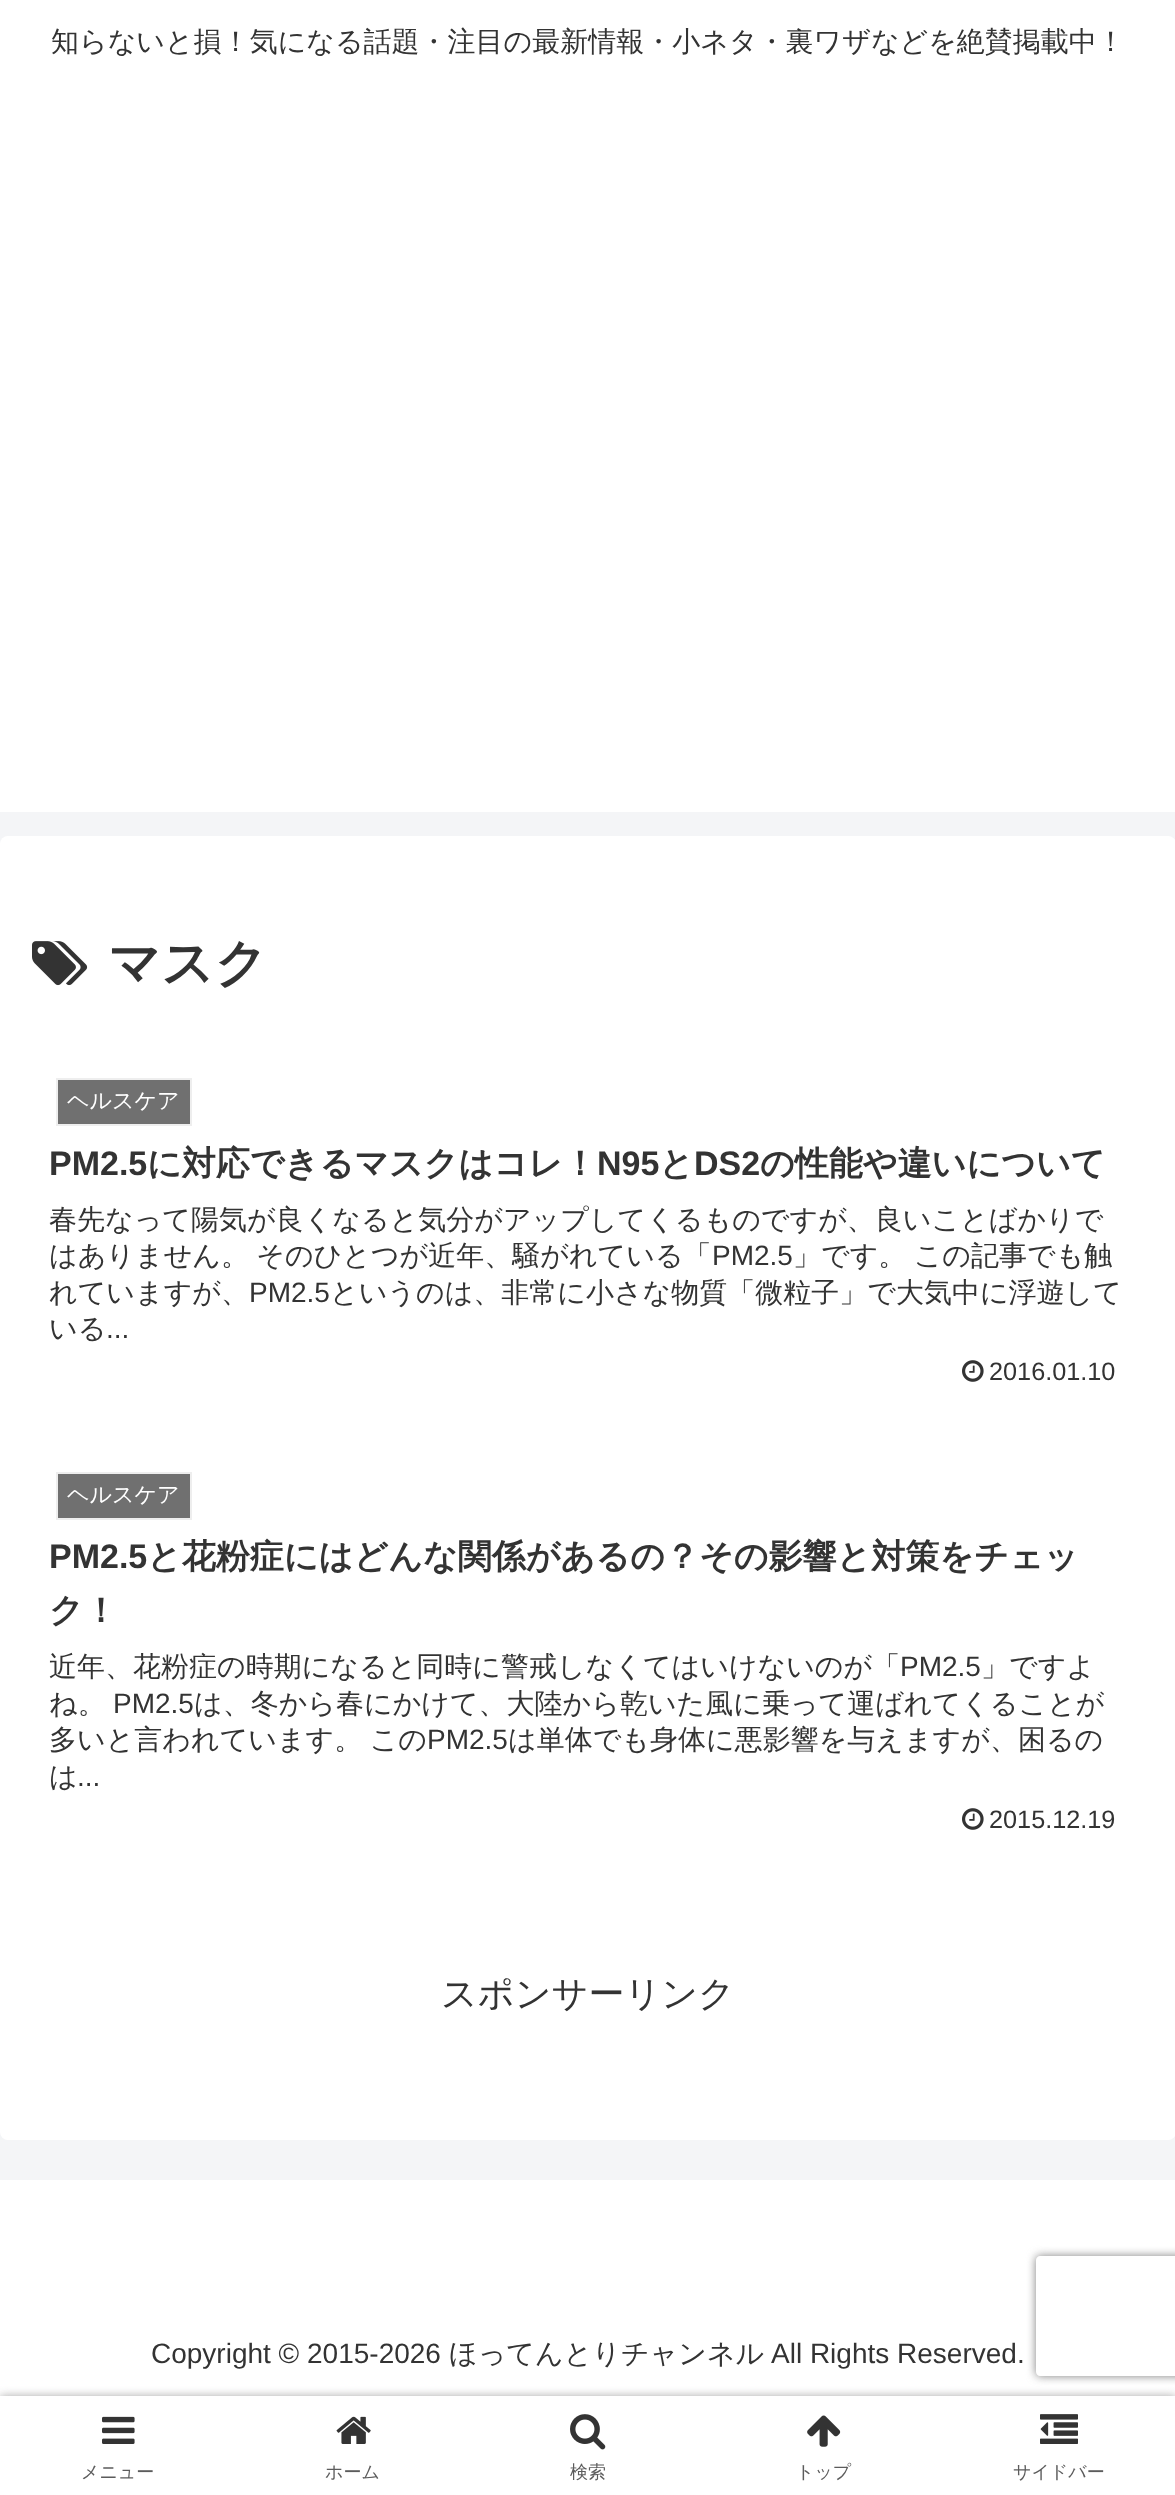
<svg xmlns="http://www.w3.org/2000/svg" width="1175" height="2495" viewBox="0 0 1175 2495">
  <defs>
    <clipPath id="clip1"><path d="M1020 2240H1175V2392H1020ZM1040 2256H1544C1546 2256 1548 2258 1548 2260V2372C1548 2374 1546 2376 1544 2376H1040C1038 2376 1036 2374 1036 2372V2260C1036 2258 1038 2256 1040 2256Z" clip-rule="evenodd"/></clipPath>
  </defs>
  <rect width="100%" height="100%" fill="rgb(244,245,247)"/>
  <rect x="0" y="0" width="1175" height="812" fill="rgb(255,255,255)"/>
  <text x="51" y="51" font-family="WenQuanYi Zen Hei" font-size="28" font-weight="500" fill="rgb(51,51,51)">知らないと損！気になる話題・注目の最新情報・小ネタ・裏ワザなどを絶賛掲載中！</text>
  <rect x="0" y="836" width="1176" height="1304" rx="8" fill="rgb(255,255,255)"/>
  <image x="32" y="941" width="56" height="45" href="pic1.png"/>
  <text x="108" y="981" font-family="WenQuanYi Zen Hei" font-size="52" font-weight="bold" fill="rgb(51,51,51)">マスク</text>
  <rect x="57" y="1079" width="134" height="46" fill="rgb(112,112,112)" stroke="rgb(238,238,238)" stroke-width="2"/>
  <text x="67" y="1108" font-family="WenQuanYi Zen Hei" font-size="22" font-weight="500" fill="rgb(255,255,255)">ヘルスケア</text>
  <text x="49" y="1175" font-family="Liberation Sans" font-size="34" font-weight="bold" fill="rgb(51,51,51)">PM2.5</text>
  <text x="147" y="1175" font-family="WenQuanYi Zen Hei" font-size="34" font-weight="bold" fill="rgb(51,51,51)">に対応できるマスクはコレ！</text>
  <text x="597" y="1175" font-family="Liberation Sans" font-size="34" font-weight="bold" fill="rgb(51,51,51)">N95</text>
  <text x="659" y="1175" font-family="WenQuanYi Zen Hei" font-size="34" font-weight="bold" fill="rgb(51,51,51)">と</text>
  <text x="694" y="1175" font-family="Liberation Sans" font-size="34" font-weight="bold" fill="rgb(51,51,51)">DS2</text>
  <text x="760" y="1175" font-family="WenQuanYi Zen Hei" font-size="34" font-weight="bold" fill="rgb(51,51,51)">の性能や違いについて</text>
  <g font-family="WenQuanYi Zen Hei" font-size="28" font-weight="500" fill="rgb(51,51,51)">
    <text>
      <tspan x="49" y="1229">春先なって陽気が良くなると気分がアップしてくるものですが、良いことばかりで</tspan>
      <tspan x="49" y="1265" word-spacing="-1">はありません。 そのひとつが近年、騒がれている「</tspan>
    </text>
  </g>
  <text x="712" y="1265" font-family="Liberation Sans" font-size="28" fill="rgb(51,51,51)">PM2.5</text>
  <g font-family="WenQuanYi Zen Hei" font-size="28" font-weight="500" fill="rgb(51,51,51)">
    <text x="793" y="1265" word-spacing="-1">」です。 この記事でも触</text>
    <text x="49" y="1302">れていますが、</text>
  </g>
  <text x="249" y="1302" font-family="Liberation Sans" font-size="28" fill="rgb(51,51,51)">PM2.5</text>
  <g font-family="WenQuanYi Zen Hei" font-size="28" font-weight="500" fill="rgb(51,51,51)">
    <text x="330" y="1302">というのは、非常に小さな物質「微粒子」で大気中に浮遊して</text>
    <text x="49" y="1338">いる</text>
  </g>
  <text x="106" y="1338" font-family="Liberation Sans" font-size="28" fill="rgb(51,51,51)">...</text>
  <image x="962" y="1360" width="22" height="22" href="pic2.png"/>
  <text x="989" y="1380" font-family="Liberation Sans" font-size="25.25" fill="rgb(51,51,51)">2016.01.10</text>
  <rect x="57" y="1473" width="134" height="46" fill="rgb(112,112,112)" stroke="rgb(238,238,238)" stroke-width="2"/>
  <text x="67" y="1502" font-family="WenQuanYi Zen Hei" font-size="22" font-weight="500" fill="rgb(255,255,255)">ヘルスケア</text>
  <text x="49" y="1568" font-family="Liberation Sans" font-size="34" font-weight="bold" fill="rgb(51,51,51)">PM2.5</text>
  <g font-family="WenQuanYi Zen Hei" font-size="34" font-weight="bold" fill="rgb(51,51,51)">
    <text x="147" y="1568">と花粉症にはどんな関係があるの？その影響と対策をチェッ</text>
    <text x="49" y="1622">ク！</text>
  </g>
  <text x="49" y="1676" font-family="WenQuanYi Zen Hei" font-size="28" font-weight="500" fill="rgb(51,51,51)">近年、花粉症の時期になると同時に警戒しなくてはいけないのが「</text>
  <text x="900" y="1676" font-family="Liberation Sans" font-size="28" fill="rgb(51,51,51)">PM2.5</text>
  <g font-family="WenQuanYi Zen Hei" font-size="28" font-weight="500" fill="rgb(51,51,51)">
    <text x="981" y="1676">」ですよ</text>
    <text x="49" y="1713">ね。</text>
  </g>
  <text x="113" y="1713" font-family="Liberation Sans" font-size="28" fill="rgb(51,51,51)">PM2.5</text>
  <g font-family="WenQuanYi Zen Hei" font-size="28" font-weight="500" fill="rgb(51,51,51)">
    <text x="194" y="1713">は、冬から春にかけて、大陸から乾いた風に乗って運ばれてくることが</text>
    <text x="49" y="1749" word-spacing="-1">多いと言われています。 この</text>
  </g>
  <text x="427" y="1749" font-family="Liberation Sans" font-size="28" fill="rgb(51,51,51)">PM2.5</text>
  <g font-family="WenQuanYi Zen Hei" font-size="28" font-weight="500" fill="rgb(51,51,51)">
    <text x="508" y="1749">は単体でも身体に悪影響を与えますが、困るの</text>
    <text x="49" y="1786">は</text>
  </g>
  <text x="77" y="1786" font-family="Liberation Sans" font-size="28" fill="rgb(51,51,51)">...</text>
  <image x="962" y="1808" width="22" height="22" href="pic2.png"/>
  <text x="989" y="1828" font-family="Liberation Sans" font-size="25.25" fill="rgb(51,51,51)">2015.12.19</text>
  <text x="441" y="2006" font-family="WenQuanYi Zen Hei" font-size="36" font-weight="500" fill="rgb(51,51,51)">スポンサーリンク</text>
  <rect x="0" y="2180" width="1175" height="216" fill="rgb(255,255,255)"/>
  <text x="151" y="2363" font-family="Liberation Sans" font-size="28" fill="rgb(51,51,51)">Copyright © 2015-2026</text>
  <text x="449" y="2363" font-family="WenQuanYi Zen Hei" font-size="28" font-weight="500" fill="rgb(51,51,51)">ほってんとりチャンネル</text>
  <text x="771" y="2363" font-family="Liberation Sans" font-size="28" fill="rgb(51,51,51)">All Rights Reserved.</text>
  <rect x="0" y="2396" width="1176" height="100" fill="rgb(169,169,169)" filter="blur(5px)"/>
  <rect x="0" y="2396" width="1175" height="99" fill="rgb(255,255,255)"/>
  <image x="102" y="2416" width="33" height="28" href="pic3.png"/>
  <text x="81" y="2478" font-family="WenQuanYi Zen Hei" font-size="18" font-weight="500" fill="rgb(92,92,92)">メニュー</text>
  <image x="336" y="2416" width="35" height="28" href="pic4.png"/>
  <text x="325" y="2478" font-family="WenQuanYi Zen Hei" font-size="18" font-weight="500" fill="rgb(92,92,92)">ホーム</text>
  <image x="570" y="2414" width="36" height="36" href="pic5.png"/>
  <text x="570" y="2478" font-family="WenQuanYi Zen Hei" font-size="18" font-weight="500" fill="rgb(92,92,92)">検索</text>
  <image x="807" y="2415" width="34" height="32" href="pic6.png"/>
  <text x="796" y="2478" font-family="WenQuanYi Zen Hei" font-size="18" font-weight="500" fill="rgb(92,92,92)">トップ</text>
  <image x="1040" y="2414" width="38" height="30" href="pic7.png"/>
  <text x="1013" y="2478" font-family="WenQuanYi Zen Hei" font-size="18" font-weight="500" fill="rgb(92,92,92)">サイドバー</text>
  <g clip-path="url(#clip1)">
    <rect x="1036" y="2256" width="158" height="120" rx="4" fill="rgb(128,128,128)" filter="blur(5px)"/>
  </g>
</svg>
